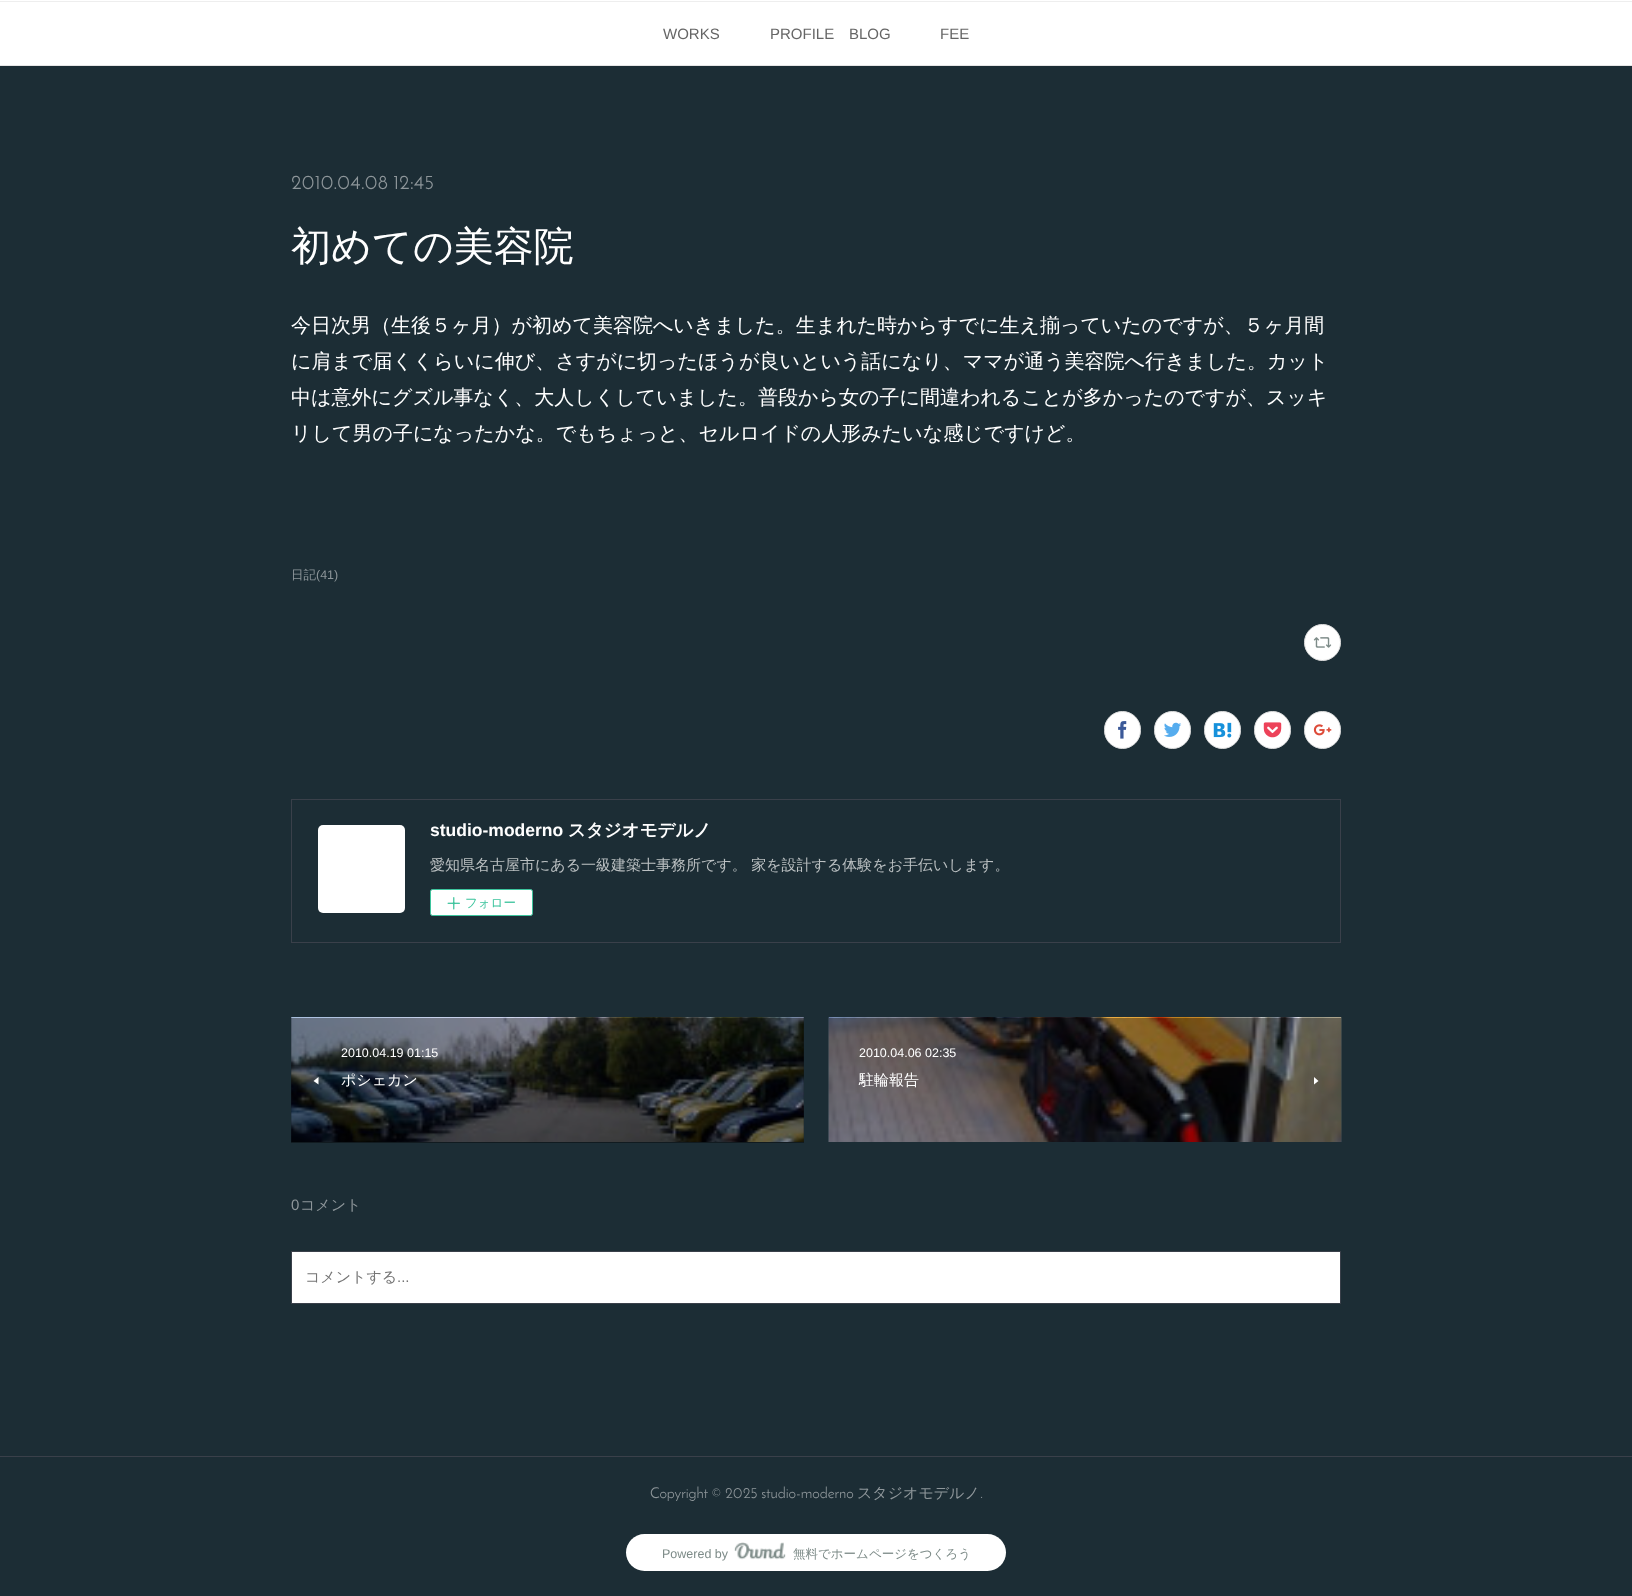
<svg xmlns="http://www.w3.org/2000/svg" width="1632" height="1596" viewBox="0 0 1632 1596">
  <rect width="100%" height="100%" fill="rgb(28,45,53)"/>
  <rect x="291" y="1018" width="513" height="125" fill="rgb(17,27,32)"/>
  <rect x="0" y="0" width="1632" height="65" fill="rgb(255,255,255)"/>
  <rect x="0" y="1" width="1632" height="1" fill="rgb(238,238,238)"/>
  <rect x="0" y="65" width="1632" height="1" fill="rgb(230,230,230)"/>
  <g font-family="Liberation Sans" font-size="15" fill="rgb(102,102,102)">
    <text x="663" y="39">WORKS</text>
    <text x="770" y="39">PROFILE</text>
    <text x="849" y="39">BLOG</text>
    <text x="940" y="39">FEE</text>
  </g>
  <text x="291" y="189" font-family="Josefin Sans" font-size="20" fill="rgb(142,150,154)">2010.04.08 12:45</text>
  <text x="291" y="260" font-family="WenQuanYi Zen Hei" font-size="40" font-weight="500" fill="rgb(255,255,255)">初めての美容院</text>
  <g font-family="WenQuanYi Zen Hei" font-size="20" font-weight="500" fill="rgb(255,255,255)">
    <text>
      <tspan x="291" y="332">今日次男（生後５ヶ月）が初めて美容院へいきました。生まれた時からすでに生え揃っていたのですが、５ヶ月間</tspan>
      <tspan x="291" y="368">に肩まで届くくらいに伸び、さすがに切ったほうが良いという話になり、ママが通う美容院へ行きました。カット</tspan>
      <tspan x="291" y="404">中は意外にグズル事なく、大人しくしていました。普段から女の子に間違われることが多かったのですが、スッキ</tspan>
      <tspan x="291" y="440">リして男の子になったかな。でもちょっと、セルロイドの人形みたいな感じですけど。</tspan>
    </text>
  </g>
  <text x="291" y="579" font-family="WenQuanYi Zen Hei" font-size="12.5" font-weight="500" fill="rgb(142,150,154)">日記</text>
  <text x="316" y="579" font-family="Liberation Sans" font-size="12.5" fill="rgb(142,150,154)">(41)</text>
  <circle cx="1322.5" cy="642.5" r="18" fill="rgb(255,255,255)" stroke="rgb(221,221,221)"/>
  <image x="1313" y="637" width="19" height="11" href="pic1.png"/>
  <rect x="1104.5" y="711.5" width="36" height="37" rx="18" fill="rgb(255,255,255)" stroke="rgb(221,221,221)"/>
  <image x="1118" y="721" width="9" height="18" href="pic2.png"/>
  <rect x="1154.5" y="711.5" width="36" height="37" rx="18" fill="rgb(255,255,255)" stroke="rgb(221,221,221)"/>
  <image x="1164" y="722" width="18" height="15" href="pic3.png"/>
  <rect x="1204.5" y="711.5" width="36" height="37" rx="18" fill="rgb(255,255,255)" stroke="rgb(221,221,221)"/>
  <image x="1213" y="722" width="19" height="16" href="pic4.png"/>
  <rect x="1254.5" y="711.5" width="36" height="37" rx="18" fill="rgb(255,255,255)" stroke="rgb(221,221,221)"/>
  <image x="1263" y="722" width="19" height="16" href="pic5.png"/>
  <rect x="1304.5" y="711.5" width="36" height="37" rx="18" fill="rgb(255,255,255)" stroke="rgb(221,221,221)"/>
  <image x="1313" y="724" width="19" height="12" href="pic6.png"/>
  <rect x="291.5" y="799.5" width="1049" height="143" fill="none" stroke="rgb(58,64,74)"/>
  <rect x="318" y="825" width="87" height="88" rx="5" fill="rgb(255,255,255)"/>
  <text x="430" y="836" font-family="Liberation Sans" font-size="17.5" font-weight="bold" fill="rgb(255,255,255)">studio-moderno</text>
  <text x="568" y="836" font-family="WenQuanYi Zen Hei" font-size="17.5" font-weight="bold" fill="rgb(255,255,255)">スタジオモデルノ</text>
  <text x="430" y="870" font-family="WenQuanYi Zen Hei" font-size="15" font-weight="500" fill="rgb(187,192,194)">愛知県名古屋市にある一級建築士事務所です。 家を設計する体験をお手伝いします。</text>
  <rect x="430.5" y="889.5" width="102" height="26" rx="2" fill="rgb(255,255,255)" stroke="rgb(61,196,157)"/>
  <image x="447" y="897" width="13" height="13" href="pic7.png"/>
  <text x="465" y="907" font-family="WenQuanYi Zen Hei" font-size="12.5" font-weight="500" fill="rgb(61,196,157)">フォロー</text>
  <image x="291" y="1017" width="513" height="125" href="pic8.png"/>
  <text x="341" y="1057" font-family="Liberation Sans" font-size="12.5" fill="rgb(255,255,255)">2010.04.19 01:15</text>
  <path d="M318.5 1084.5V1077L313.5 1081Z" fill="rgb(255,255,255)"/>
  <text x="341" y="1085" font-family="WenQuanYi Zen Hei" font-size="15" font-weight="500" fill="rgb(255,255,255)">ポシェカン</text>
  <image x="828" y="1017" width="514" height="125" href="pic9.png"/>
  <text x="859" y="1057" font-family="Liberation Sans" font-size="12.5" fill="rgb(255,255,255)">2010.04.06 02:35</text>
  <text x="859" y="1085" font-family="WenQuanYi Zen Hei" font-size="15" font-weight="500" fill="rgb(255,255,255)">駐輪報告</text>
  <path d="M1314 1077V1084.5L1318.5 1081Z" fill="rgb(255,255,255)"/>
  <text x="291" y="1210" font-family="Liberation Sans" font-size="15" fill="rgb(142,150,154)">0</text>
  <text x="300" y="1210" font-family="WenQuanYi Zen Hei" font-size="15" font-weight="500" fill="rgb(142,150,154)">コメント</text>
  <rect x="291.5" y="1251.5" width="1049" height="52" fill="rgb(255,255,255)" stroke="rgb(58,64,74)"/>
  <text x="305" y="1282" font-family="WenQuanYi Zen Hei" font-size="15" font-weight="500" fill="rgb(117,117,117)">コメントする</text>
  <text x="397" y="1282" font-family="Liberation Sans" font-size="15" fill="rgb(117,117,117)">...</text>
  <rect x="0" y="1456" width="1632" height="1" fill="rgb(58,64,74)"/>
  <text x="650" y="1498" font-family="Josefin Sans" font-size="15" fill="rgb(142,150,154)">Copyright © 2025 studio-moderno</text>
  <text x="857" y="1498" font-family="WenQuanYi Zen Hei" font-size="15" font-weight="500" fill="rgb(142,150,154)">スタジオモデルノ</text>
  <text x="980" y="1498" font-family="Josefin Sans" font-size="15" fill="rgb(142,150,154)">.</text>
  <rect x="626" y="1534" width="380" height="37" rx="18.5" fill="rgb(255,255,255)"/>
  <text x="662" y="1558" font-family="Liberation Sans" font-size="12.5" fill="rgb(125,139,136)">Powered by</text>
  <image x="734" y="1542" width="52" height="18" href="pic10.png"/>
  <text x="793" y="1558" font-family="WenQuanYi Zen Hei" font-size="12.5" font-weight="500" fill="rgb(125,139,136)">無料でホームページをつくろう</text>
</svg>
